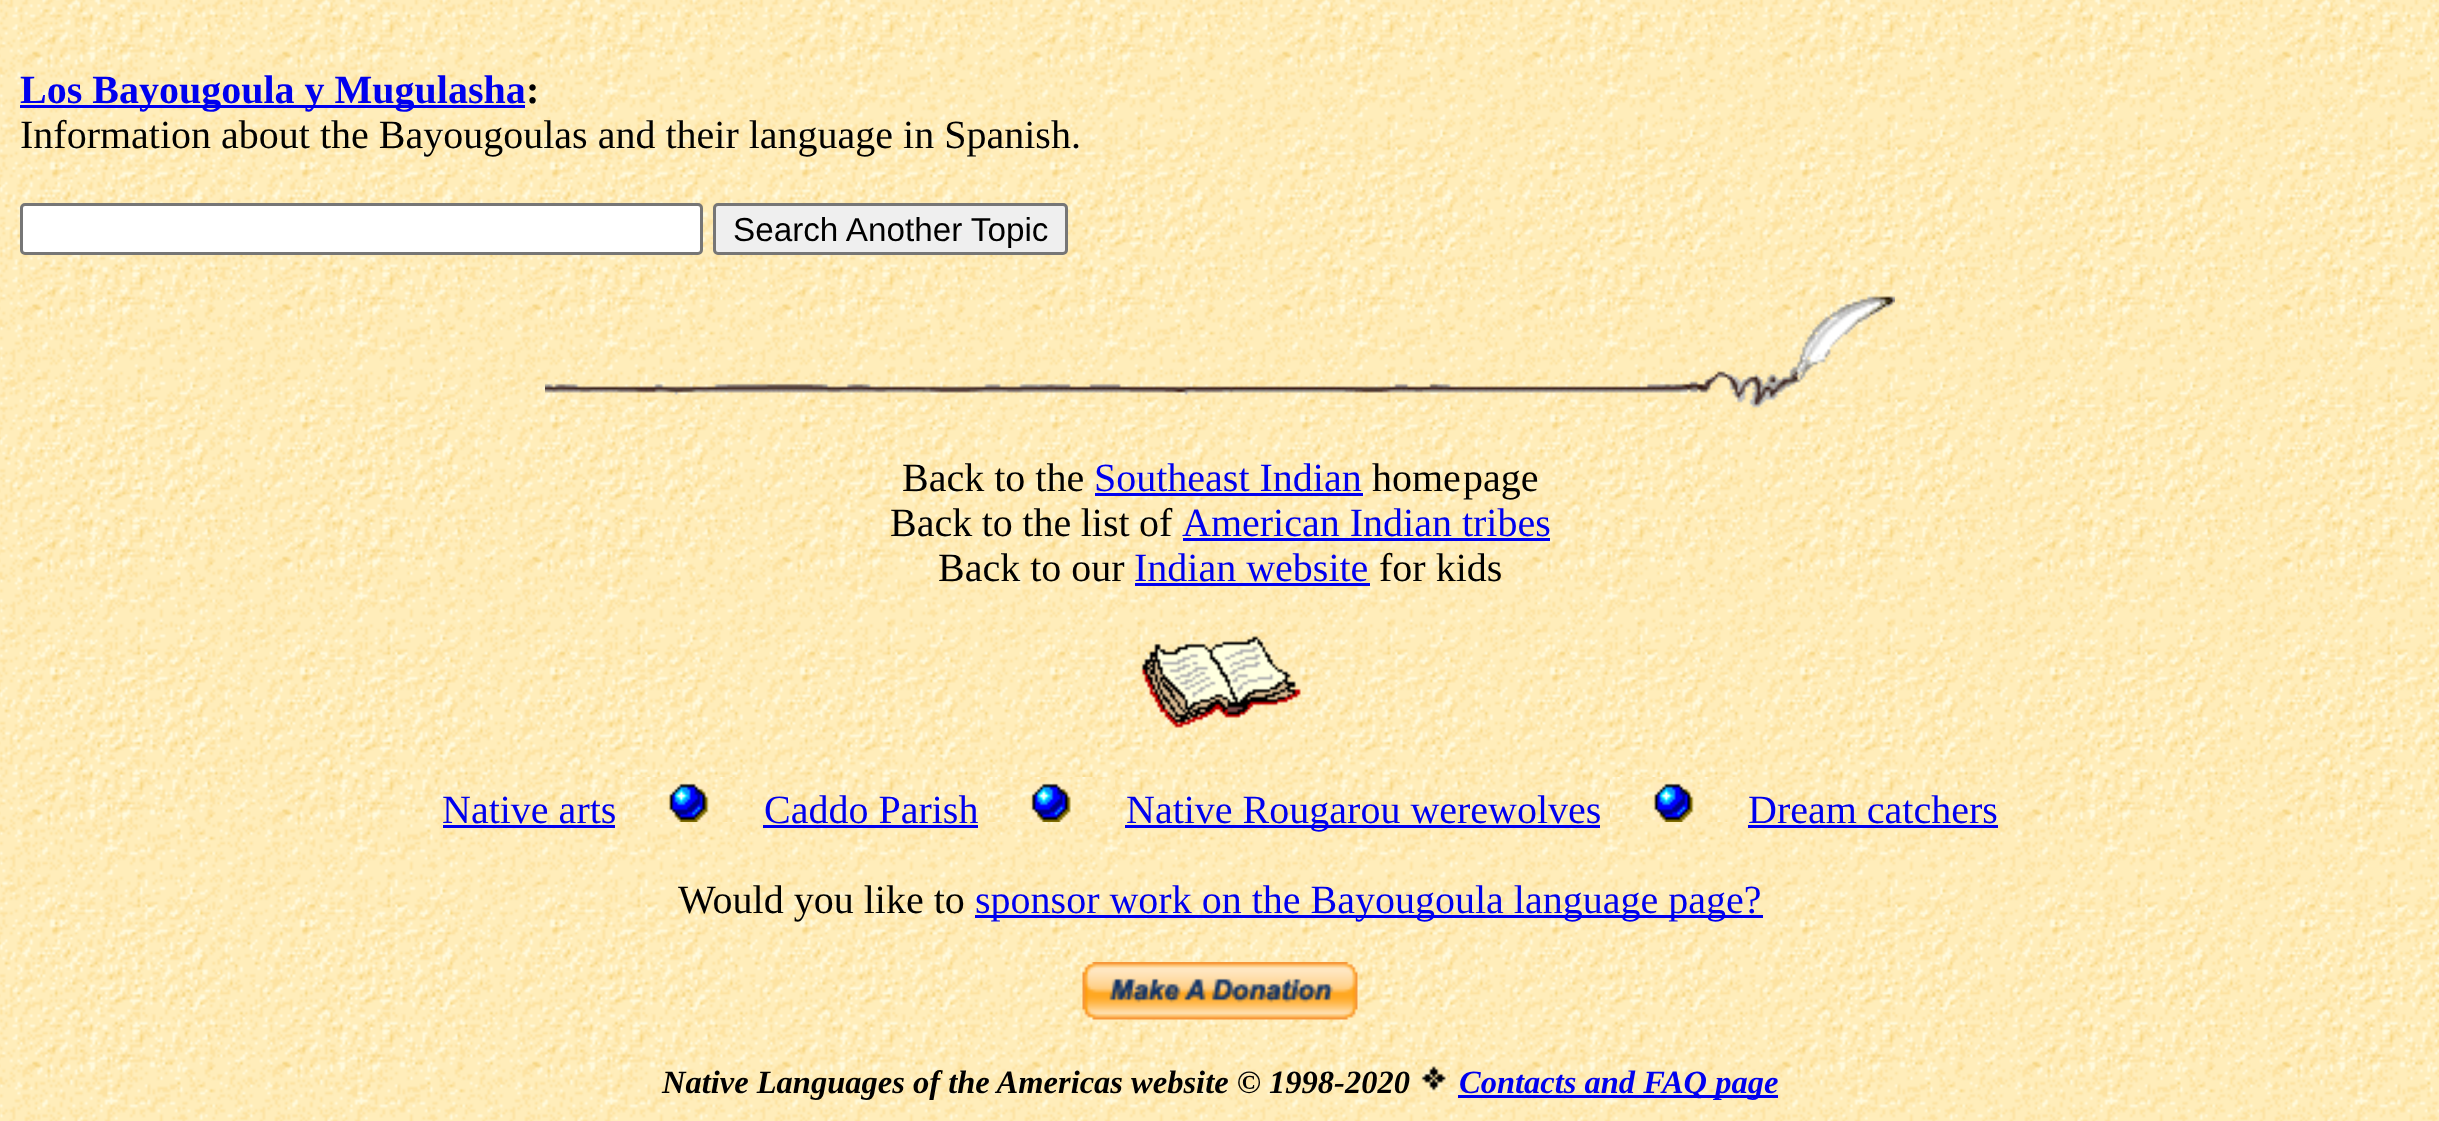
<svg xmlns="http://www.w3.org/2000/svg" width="2439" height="1121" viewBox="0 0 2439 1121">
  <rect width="100%" height="100%" fill="rgb(255,255,255)"/>
  <image x="0" y="0" width="2439" height="1121" href="pic1.png"/>
  <rect x="20" y="105" width="505" height="3" fill="rgb(0,0,238)"/>
  <text x="20" y="103" font-family="Liberation Serif" font-size="40" font-weight="bold" fill="rgb(0,0,238)">Los Bayougoula y Mugulasha</text>
  <text x="526" y="103" font-family="Liberation Serif" font-size="40" font-weight="bold" fill="rgb(0,0,0)">:</text>
  <text x="20" y="148" font-family="Liberation Serif" font-size="40" fill="rgb(0,0,0)">Information about the Bayougoulas and their language in Spanish.</text>
  <rect x="21.5" y="204.5" width="680" height="49" rx="3.5" fill="rgb(255,255,255)" stroke="rgb(118,118,118)" stroke-width="3"/>
  <rect x="714.5" y="204.5" width="352" height="49" rx="3.5" fill="rgb(239,239,239)" stroke="rgb(118,118,118)" stroke-width="3"/>
  <text x="733" y="241" font-family="Liberation Sans" font-size="33.25" fill="rgb(0,0,0)">Search Another Topic</text>
  <image x="545" y="296" width="1350" height="112" href="pic2.png"/>
  <text x="902" y="491" font-family="Liberation Serif" font-size="40" fill="rgb(0,0,0)">Back to the</text>
  <text x="1094" y="491" font-family="Liberation Serif" font-size="40" fill="rgb(0,0,238)">Southeast Indian</text>
  <rect x="1095" y="493" width="268" height="3" fill="rgb(0,0,238)"/>
  <g font-family="Liberation Serif" font-size="40" fill="rgb(0,0,0)">
    <text x="1372" y="491">home</text>
    <text x="1463" y="491">page</text>
    <text x="890" y="536" word-spacing="-0.5">Back to the list of</text>
  </g>
  <text x="1182" y="536" font-family="Liberation Serif" font-size="40" fill="rgb(0,0,238)">American Indian tribes</text>
  <rect x="1183" y="538" width="367" height="3" fill="rgb(0,0,238)"/>
  <text x="938" y="581" font-family="Liberation Serif" font-size="40" fill="rgb(0,0,0)">Back to our</text>
  <text x="1134" y="581" font-family="Liberation Serif" font-size="40" fill="rgb(0,0,238)">Indian website</text>
  <rect x="1135" y="583" width="235" height="3" fill="rgb(0,0,238)"/>
  <text x="1379" y="581" font-family="Liberation Serif" font-size="40" fill="rgb(0,0,0)">for kids</text>
  <image x="1141" y="636" width="160" height="92" href="pic3.png"/>
  <text x="442" y="823" font-family="Liberation Serif" font-size="40" fill="rgb(0,0,238)">Native arts</text>
  <rect x="443" y="825" width="172" height="3" fill="rgb(0,0,238)"/>
  <image x="625" y="777" width="128" height="45" href="pic4.png"/>
  <text x="764" y="823" font-family="Liberation Serif" font-size="40" fill="rgb(0,0,238)">Caddo Parish</text>
  <rect x="763" y="825" width="215" height="3" fill="rgb(0,0,238)"/>
  <image x="987" y="777" width="128" height="45" href="pic5.png"/>
  <rect x="1125" y="825" width="475" height="3" fill="rgb(0,0,238)"/>
  <text x="1126" y="823" font-family="Liberation Serif" font-size="40" fill="rgb(0,0,238)">Native Rougarou werewolves</text>
  <image x="1610" y="777" width="128" height="45" href="pic6.png"/>
  <text x="1748" y="823" font-family="Liberation Serif" font-size="40" fill="rgb(0,0,238)">Dream catchers</text>
  <rect x="1748" y="825" width="250" height="3" fill="rgb(0,0,238)"/>
  <text x="678" y="913" font-family="Liberation Serif" font-size="40" fill="rgb(0,0,0)">Would you like to</text>
  <rect x="975" y="915" width="788" height="3" fill="rgb(0,0,238)"/>
  <text x="975" y="913" font-family="Liberation Serif" font-size="40" fill="rgb(0,0,238)">sponsor work on the Bayougoula language page?</text>
  <image x="1082" y="962" width="276" height="58" href="pic7.png"/>
  <text x="662" y="1093" font-family="Liberation Serif" font-size="32.5" font-weight="bold" font-style="italic" fill="rgb(0,0,0)">Native Languages of the Americas website © 1998-2020</text>
  <image x="1417" y="1059" width="33" height="33" href="pic8.png"/>
  <rect x="1458" y="1095" width="320" height="3" fill="rgb(0,0,238)"/>
  <text x="1459" y="1093" font-family="Liberation Serif" font-size="32.5" font-weight="bold" font-style="italic" fill="rgb(0,0,238)">Contacts and FAQ page</text>
</svg>
